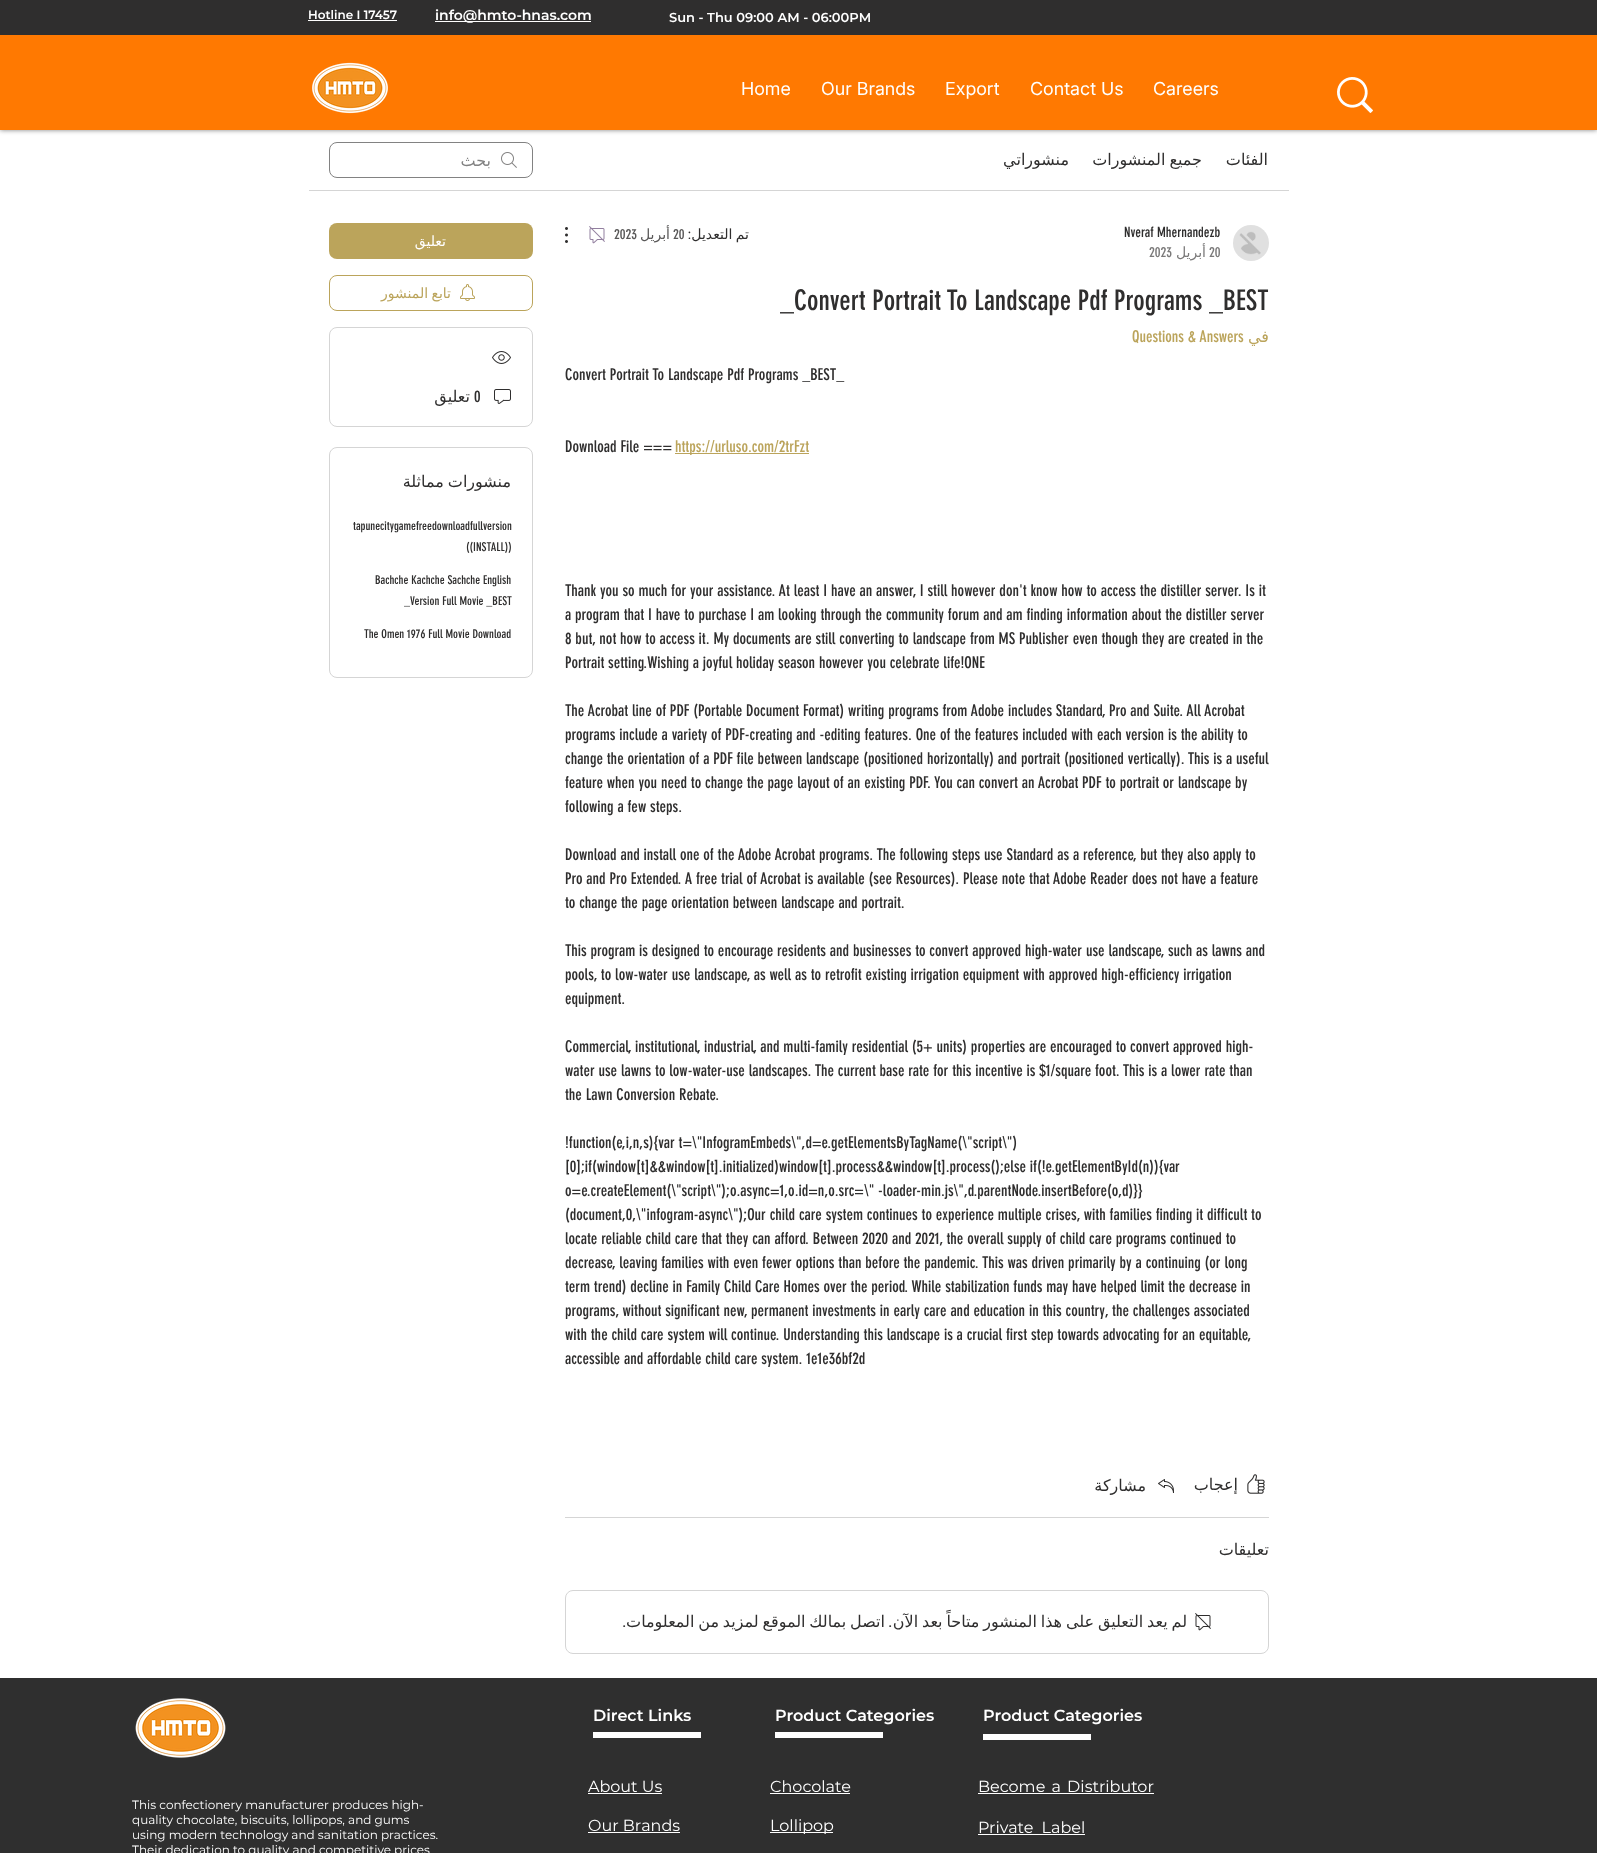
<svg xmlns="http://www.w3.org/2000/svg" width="1597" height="1853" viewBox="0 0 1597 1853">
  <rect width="100%" height="100%" fill="rgb(255,255,255)"/>
  <rect x="0" y="0" width="1597" height="130" fill="rgba(0,0,0,0.5)" filter="blur(2.5px)"/>
  <rect x="0" y="35" width="1597" height="95" fill="rgb(255,121,1)"/>
  <rect x="0" y="0" width="1597" height="35" fill="rgb(47,46,46)"/>
  <text x="308" y="19" font-family="Montserrat" font-size="12" font-weight="600" fill="rgb(255,255,255)">Hotline I 17457</text>
  <rect x="308" y="20" width="89" height="1" fill="rgb(255,255,255)"/>
  <rect x="435" y="21" width="156" height="1" fill="rgb(255,255,255)"/>
  <text x="435" y="20" font-family="Montserrat" font-size="14" font-weight="600" fill="rgb(255,255,255)">info@hmto-hnas.com</text>
  <text x="669" y="22" font-family="Montserrat" font-size="13" font-weight="600" fill="rgb(255,255,255)">Sun - Thu 09:00 AM - 06:00PM</text>
  <image x="312" y="62" width="76" height="52" href="pic1.png"/>
  <g font-family="Inter" font-size="18" fill="rgb(255,255,255)">
    <text x="741" y="95">Home</text>
    <text x="821" y="95">Our Brands</text>
    <text x="945" y="95">Export</text>
    <text x="1030" y="95">Contact Us</text>
    <text x="1153" y="95">Careers</text>
  </g>
  <image x="1337" y="77" width="36" height="36" href="pic2.png"/>
  <rect x="309" y="190" width="980" height="1" fill="rgb(213,213,213)"/>
  <image x="501" y="152" width="16" height="16" href="pic3.png"/>
  <rect x="329.5" y="142.5" width="203" height="35" rx="7.5" fill="none" stroke="rgb(130,130,130)"/>
  <text x="491" y="166" font-family="DejaVu Sans" font-size="16" direction="rtl" fill="rgb(130,130,130)">بحث</text>
  <g font-family="DejaVu Sans" font-size="16" direction="rtl" fill="rgb(47,46,46)">
    <text x="1069" y="165">منشوراتي</text>
    <text x="1202" y="165" word-spacing="-1">جميع المنشورات</text>
    <text x="1268" y="165">الفئات</text>
  </g>
  <rect x="329" y="223" width="204" height="36" rx="8" fill="rgb(187,164,91)"/>
  <text x="446" y="246" font-family="DejaVu Sans" font-size="14" direction="rtl" fill="rgb(255,255,255)">تعليق</text>
  <rect x="329.5" y="275.5" width="203" height="35" rx="7.5" fill="none" stroke="rgb(187,164,91)"/>
  <text x="451" y="298" word-spacing="-1" font-family="DejaVu Sans" font-size="14" direction="rtl" fill="rgb(187,164,91)">تابع المنشور</text>
  <image x="460" y="284" width="15" height="17" href="pic4.png"/>
  <rect x="329.5" y="327.5" width="203" height="99" rx="7.5" fill="none" stroke="rgb(213,213,213)"/>
  <text x="470" y="402" font-family="DejaVu Sans" font-size="16" direction="rtl" fill="rgb(47,46,46)">تعليق</text>
  <text x="474" y="402" font-family="'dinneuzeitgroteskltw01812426'" font-size="16" fill="rgb(47,46,46)">0</text>
  <image x="492" y="351" width="19" height="13" href="pic5.png"/>
  <image x="494" y="389" width="17" height="15" href="pic6.png"/>
  <rect x="329.5" y="447.5" width="203" height="230" rx="7.5" fill="none" stroke="rgb(213,213,213)"/>
  <text x="511" y="487" word-spacing="-1" font-family="DejaVu Sans" font-size="16" direction="rtl" fill="rgb(47,46,46)">منشورات مماثلة</text>
  <g font-family="'dinneuzeitgroteskltw01812426'" font-size="12" fill="rgb(47,46,46)">
    <text x="353" y="530">tapunecitygamefreedownloadfullversion</text>
    <text x="466" y="551">((INSTALL))</text>
    <text x="375" y="584">Bachche Kachche Sachche English</text>
    <text x="404" y="605">_Version Full Movie _BEST</text>
    <text x="364" y="638">The Omen 1976 Full Movie Download</text>
  </g>
  <image x="565" y="227" width="3" height="16" href="pic7.png"/>
  <image x="589" y="226" width="16" height="18" href="pic8.png"/>
  <text x="614" y="239" font-family="'dinneuzeitgroteskltw01812426'" font-size="14" fill="rgb(89,88,88)">2023</text>
  <text x="670" y="239" font-family="DejaVu Sans" font-size="14" direction="rtl" fill="rgb(89,88,88)">أبريل</text>
  <text x="673" y="239" font-family="'dinneuzeitgroteskltw01812426'" font-size="14" fill="rgb(89,88,88)">20</text>
  <text x="691" y="239" font-family="'dinneuzeitgroteskltw01812426'" font-size="14" direction="rtl" fill="rgb(47,46,46)">:</text>
  <text x="749" y="239" word-spacing="-1" font-family="DejaVu Sans" font-size="14" direction="rtl" fill="rgb(47,46,46)">تم التعديل</text>
  <text x="1124" y="237" font-family="'dinneuzeitgroteskltw01812426'" font-size="14" fill="rgb(47,46,46)">Nveraf Mhernandezb</text>
  <text x="1149" y="257" font-family="'dinneuzeitgroteskltw01812426'" font-size="14" fill="rgb(122,121,121)">2023</text>
  <text x="1206" y="257" font-family="DejaVu Sans" font-size="14" direction="rtl" fill="rgb(122,121,121)">أبريل</text>
  <text x="1209" y="257" font-family="'dinneuzeitgroteskltw01812426'" font-size="14" fill="rgb(122,121,121)">20</text>
  <image x="1233" y="225" width="36" height="36" href="pic9.png"/>
  <text x="780" y="310" font-family="'dinneuzeitgroteskltw01812426'" font-size="28" fill="rgb(47,46,46)">_Convert Portrait To Landscape Pdf Programs _BEST</text>
  <text x="1132" y="342" font-family="'dinneuzeitgroteskltw01812426'" font-size="16" fill="rgb(187,164,91)">Questions &amp; Answers</text>
  <text x="1269" y="342" font-family="DejaVu Sans" font-size="16" direction="rtl" fill="rgb(187,164,91)">في</text>
  <g font-family="'dinneuzeitgroteskltw01812426'" font-size="16" fill="rgb(47,46,46)">
    <text x="565" y="380">Convert Portrait To Landscape Pdf Programs _BEST_</text>
    <text x="565" y="452">Download File ===</text>
  </g>
  <rect x="675" y="453" width="134" height="1" fill="rgb(187,164,91)"/>
  <text x="675" y="452" font-family="'dinneuzeitgroteskltw01812426'" font-size="16" fill="rgb(187,164,91)">https://urluso.com/2trFzt</text>
  <g font-family="'dinneuzeitgroteskltw01812426'" font-size="16" fill="rgb(47,46,46)">
    <text>
      <tspan x="565" y="596">Thank you so much for your assistance. At least I have an answer, I still however don't know how to access the distiller server. Is it</tspan>
      <tspan x="565" y="620">a program that I have to purchase I am looking through the community forum and am finding information about the distiller server</tspan>
      <tspan x="565" y="644">8 but, not how to access it. My documents are still converting to landscape from MS Publisher even though they are created in the</tspan>
      <tspan x="565" y="668">Portrait setting.Wishing a joyful holiday season however you celebrate life!ONE</tspan>
    </text>
    <text>
      <tspan x="565" y="716">The Acrobat line of PDF (Portable Document Format) writing programs from Adobe includes Standard, Pro and Suite. All Acrobat</tspan>
      <tspan x="565" y="740">programs include a variety of PDF-creating and -editing features. One of the features included with each version is the ability to</tspan>
      <tspan x="565" y="764">change the orientation of a PDF file between landscape (positioned horizontally) and portrait (positioned vertically). This is a useful</tspan>
      <tspan x="565" y="788">feature when you need to change the page layout of an existing PDF. You can convert an Acrobat PDF to portrait or landscape by</tspan>
      <tspan x="565" y="812">following a few steps.</tspan>
    </text>
    <text>
      <tspan x="565" y="860">Download and install one of the Adobe Acrobat programs. The following steps use Standard as a reference, but they also apply to</tspan>
      <tspan x="565" y="884">Pro and Pro Extended. A free trial of Acrobat is available (see Resources). Please note that Adobe Reader does not have a feature</tspan>
      <tspan x="565" y="908">to change the page orientation between landscape and portrait.</tspan>
    </text>
    <text>
      <tspan x="565" y="956">This program is designed to encourage residents and businesses to convert approved high-water use landscape, such as lawns and</tspan>
      <tspan x="565" y="980">pools, to low-water use landscape, as well as to retrofit existing irrigation equipment with approved high-efficiency irrigation</tspan>
      <tspan x="565" y="1004">equipment.</tspan>
    </text>
    <text>
      <tspan x="565" y="1052">Commercial, institutional, industrial, and multi-family residential (5+ units) properties are encouraged to convert approved high-</tspan>
      <tspan x="565" y="1076">water use lawns to low-water-use landscapes. The current base rate for this incentive is $1/square foot. This is a lower rate than</tspan>
      <tspan x="565" y="1100">the Lawn Conversion Rebate.</tspan>
    </text>
    <text>
      <tspan x="565" y="1148">!function(e,i,n,s){var t=\"InfogramEmbeds\",d=e.getElementsByTagName(\"script\")</tspan>
      <tspan x="565" y="1172">[0];if(window[t]&amp;&amp;window[t].initialized)window[t].process&amp;&amp;window[t].process();else if(!e.getElementById(n)){var</tspan>
      <tspan x="565" y="1196">o=e.createElement(\"script\");o.async=1,o.id=n,o.src=\" -loader-min.js\",d.parentNode.insertBefore(o,d)}}</tspan>
      <tspan x="565" y="1220">(document,0,\"infogram-async\");Our child care system continues to experience multiple crises, with families finding it difficult to</tspan>
      <tspan x="565" y="1244">locate reliable child care that they can afford. Between 2020 and 2021, the overall supply of child care programs continued to</tspan>
      <tspan x="565" y="1268">decrease, leaving families with even fewer options than before the pandemic. This was driven primarily by a continuing (or long</tspan>
      <tspan x="565" y="1292">term trend) decline in Family Child Care Homes over the period. While stabilization funds may have helped limit the decrease in</tspan>
      <tspan x="565" y="1316">programs, without significant new, permanent investments in early care and education in this country, the challenges associated</tspan>
      <tspan x="565" y="1340">with the child care system will continue. Understanding this landscape is a crucial first step towards advocating for an equitable,</tspan>
      <tspan x="565" y="1364">accessible and affordable child care system. 1e1e36bf2d</tspan>
    </text>
  </g>
  <text x="1146" y="1491" font-family="DejaVu Sans" font-size="16" direction="rtl" fill="rgb(47,46,46)">مشاركة</text>
  <image x="1158" y="1479" width="16" height="14" href="pic10.png"/>
  <text x="1238" y="1490" font-family="DejaVu Sans" font-size="16" direction="rtl" fill="rgb(47,46,46)">إعجاب</text>
  <image x="1247" y="1474" width="18" height="20" href="pic11.png"/>
  <rect x="565" y="1517" width="704" height="1" fill="rgb(213,213,213)"/>
  <text x="1269" y="1555" font-family="DejaVu Sans" font-size="16" direction="rtl" fill="rgb(47,46,46)">تعليقات</text>
  <rect x="565.5" y="1590.5" width="703" height="63" rx="7.5" fill="none" stroke="rgb(213,213,213)"/>
  <text x="626" y="1627" font-family="'dinneuzeitgroteskltw01812426'" font-size="16" direction="rtl" fill="rgb(47,46,46)">.</text>
  <g font-family="DejaVu Sans" font-size="16" direction="rtl" fill="rgb(47,46,46)">
    <text x="885" y="1627" word-spacing="-1.25">اتصل بمالك الموقع لمزيد من المعلومات</text>
    <text x="1187" y="1627" word-spacing="-1.25">لم يعد التعليق على هذا المنشور متاحاً بعد الآن</text>
  </g>
  <text x="892" y="1627" font-family="'dinneuzeitgroteskltw01812426'" font-size="16" direction="rtl" fill="rgb(47,46,46)">.</text>
  <image x="1195" y="1613" width="16" height="18" href="pic12.png"/>
  <rect x="0" y="1678" width="1597" height="175" fill="rgb(47,47,47)"/>
  <image x="135" y="1698" width="91" height="60" href="pic13.png"/>
  <g font-family="Montserrat" font-size="16" font-weight="600" fill="rgb(255,255,255)">
    <text x="593" y="1721">Direct Links</text>
    <text x="775" y="1721">Product Categories</text>
    <text x="983" y="1721">Product Categories</text>
  </g>
  <rect x="593" y="1732" width="108" height="6" fill="rgb(255,255,255)"/>
  <rect x="775" y="1732" width="108" height="6" fill="rgb(255,255,255)"/>
  <rect x="983" y="1734" width="108" height="6" fill="rgb(255,255,255)"/>
  <text x="588" y="1792" font-family="Montserrat" font-size="16" fill="rgb(255,255,255)">About Us</text>
  <rect x="588" y="1793" width="74" height="1" fill="rgb(255,255,255)"/>
  <text x="770" y="1792" font-family="Montserrat" font-size="16" fill="rgb(255,255,255)">Chocolate</text>
  <rect x="770" y="1793" width="80" height="1" fill="rgb(255,255,255)"/>
  <text x="978" y="1792" word-spacing="2" font-family="Montserrat" font-size="16" fill="rgb(255,255,255)">Become a Distributor</text>
  <rect x="978" y="1793" width="176" height="1" fill="rgb(255,255,255)"/>
  <g font-family="Montserrat" font-size="12" fill="rgb(255,255,255)">
    <text>
      <tspan x="132" y="1809">This confectionery manufacturer produces high-</tspan>
      <tspan x="132" y="1824">quality chocolate, biscuits, lollipops, and gums</tspan>
      <tspan x="132" y="1839">using modern technology and sanitation practices.</tspan>
      <tspan x="132" y="1854">Their dedication to quality and competitive prices</tspan>
    </text>
  </g>
  <text x="588" y="1831" font-family="Montserrat" font-size="16" fill="rgb(255,255,255)">Our Brands</text>
  <rect x="588" y="1832" width="92" height="1" fill="rgb(255,255,255)"/>
  <rect x="770" y="1832" width="63" height="1" fill="rgb(255,255,255)"/>
  <g font-family="Montserrat" font-size="16" fill="rgb(255,255,255)">
    <text x="770" y="1831">Lollipop</text>
    <text x="978" y="1833" word-spacing="4">Private Label</text>
  </g>
  <rect x="978" y="1834" width="107" height="1" fill="rgb(255,255,255)"/>
</svg>
